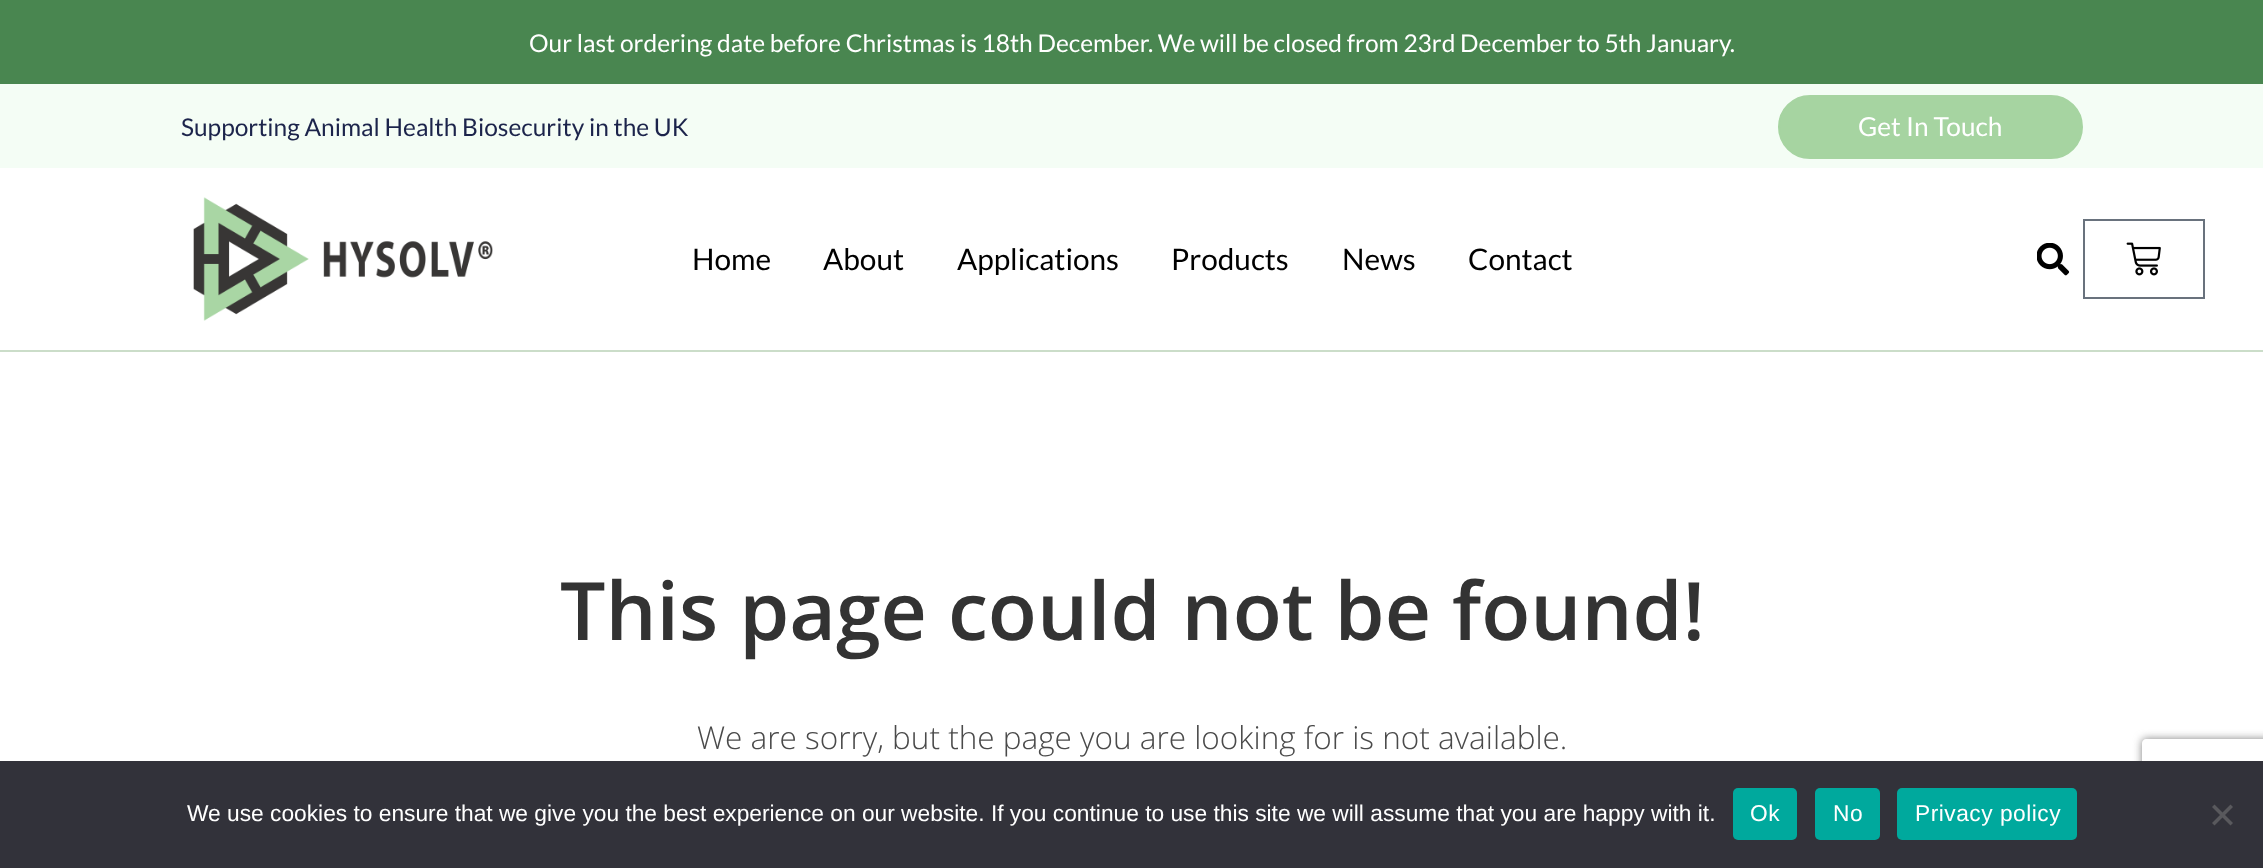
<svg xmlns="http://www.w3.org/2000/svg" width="2263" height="868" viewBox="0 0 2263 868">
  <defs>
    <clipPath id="clip1"><path d="M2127 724H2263V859H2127ZM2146 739H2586C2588 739 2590 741 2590 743V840C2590 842 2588 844 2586 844H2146C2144 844 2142 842 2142 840V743C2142 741 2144 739 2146 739Z" clip-rule="evenodd"/></clipPath>
  </defs>
  <rect width="100%" height="100%" fill="rgb(255,255,255)"/>
  <rect x="0" y="0" width="2263" height="84" fill="rgb(73,134,80)"/>
  <text x="529" y="52" font-family="Lato" font-size="24.5" fill="rgb(255,255,255)">Our last ordering date before Christmas is 18th December. We will be closed from 23rd December to 5th January.</text>
  <rect x="0" y="84" width="2263" height="84" fill="rgb(244,253,245)"/>
  <text x="181" y="136" font-family="Lato" font-size="24.5" fill="rgb(28,36,75)">Supporting Animal Health Biosecurity in the UK</text>
  <rect x="1779" y="96" width="303" height="62" rx="31" fill="rgb(166,212,161)" stroke="rgb(166,212,161)" stroke-width="2"/>
  <text x="1858" y="136" font-family="Lato" font-size="26.25" fill="rgb(255,255,255)">Get In Touch</text>
  <rect x="0" y="350" width="2263" height="2" fill="rgb(203,221,201)"/>
  <image x="193" y="197" width="300" height="124" href="pic1.png"/>
  <g font-family="Lato" font-size="29.75" fill="rgb(0,0,0)">
    <text x="692" y="270">Home</text>
    <text x="823" y="270">About</text>
    <text x="957" y="270">Applications</text>
    <text x="1171" y="270">Products</text>
    <text x="1342" y="270">News</text>
    <text x="1468" y="270">Contact</text>
  </g>
  <image x="2037" y="243" width="33" height="33" href="pic2.png"/>
  <rect x="2084" y="220" width="120" height="78" fill="none" stroke="rgb(105,114,125)" stroke-width="2"/>
  <image x="2126" y="242" width="35" height="34" href="pic3.png"/>
  <text x="560" y="640" font-family="Open Sans" font-size="80.5" font-weight="600" fill="rgb(51,51,51)">This page could not be found!</text>
  <text x="697" y="749" font-family="Open Sans" font-size="31.5" font-weight="300" fill="rgb(74,74,74)">We are sorry, but the page you are looking for is not available.</text>
  <g clip-path="url(#clip1)">
    <rect x="2142" y="739" width="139" height="105" rx="4" fill="rgb(128,128,128)" filter="blur(4.5px)"/>
  </g>
  <rect x="0" y="761" width="2263" height="107" fill="rgb(50,50,58)"/>
  <text x="187" y="821" font-family="Liberation Sans" font-size="22.75" fill="rgb(255,255,255)">We use cookies to ensure that we give you the best experience on our website. If you continue to use this site we will assume that you are happy with it.</text>
  <rect x="1733" y="788" width="64" height="52" rx="5" fill="rgb(0,169,157)"/>
  <text x="1750" y="821" font-family="Liberation Sans" font-size="22.75" letter-spacing="0.5" fill="rgb(255,255,255)">Ok</text>
  <rect x="1815" y="788" width="65" height="52" rx="5" fill="rgb(0,169,157)"/>
  <text x="1833" y="821" font-family="Liberation Sans" font-size="22.75" letter-spacing="0.5" fill="rgb(255,255,255)">No</text>
  <rect x="1897" y="788" width="180" height="52" rx="5" fill="rgb(0,169,157)"/>
  <text x="1915" y="821" font-family="Liberation Sans" font-size="22.75" letter-spacing="0.5" fill="rgb(255,255,255)">Privacy policy</text>
  <path d="M2230.5 804.5L2233 807L2214.5 825.5L2212 823Z" fill="rgb(89,89,93)"/>
  <path d="M2212 807L2214.5 804.5L2233 823L2230.5 825.5Z" fill="rgb(89,89,93)"/>
</svg>
